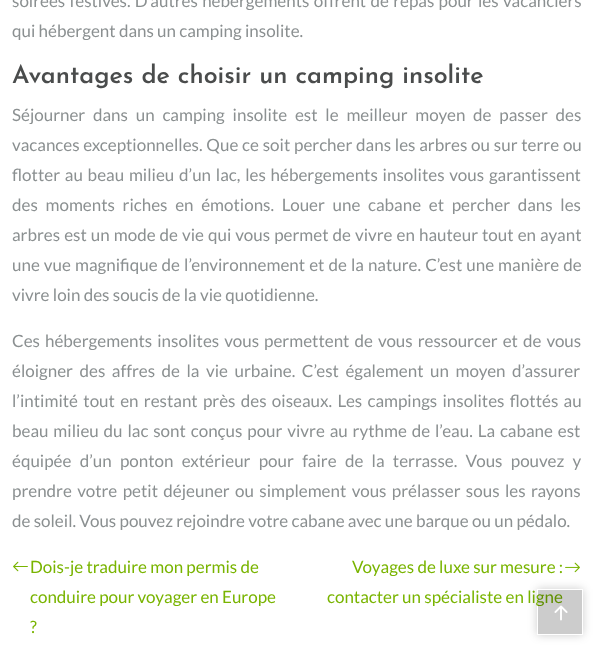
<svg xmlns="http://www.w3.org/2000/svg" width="593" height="655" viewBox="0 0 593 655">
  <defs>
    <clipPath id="clip1"><path d="M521 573H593V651H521ZM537 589H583V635H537Z" clip-rule="evenodd"/></clipPath>
  </defs>
  <rect width="100%" height="100%" fill="rgb(255,255,255)"/>
  <g font-family="Lato" font-size="17" fill="rgb(139,144,145)">
    <text>
      <tspan x="12" y="7" word-spacing="1">soirées festives. D’autres hébergements offrent de repas pour les vacanciers</tspan>
      <tspan x="12" y="37">qui hébergent dans un camping insolite.</tspan>
    </text>
  </g>
  <text x="12" y="83" font-family="Josefin Sans" font-size="25" font-weight="600" fill="rgb(74,76,76)">Avantages de choisir un camping insolite</text>
  <g font-family="Lato" font-size="17" fill="rgb(139,144,145)">
    <text>
      <tspan x="12" y="121" word-spacing="4.5">Séjourner dans un camping insolite est le meilleur moyen de passer des</tspan>
      <tspan x="12" y="151" word-spacing="0.5">vacances exceptionnelles. Que ce soit percher dans les arbres ou sur terre ou</tspan>
      <tspan x="12" y="181" word-spacing="1.5">flotter au beau milieu d’un lac, les hébergements insolites vous garantissent</tspan>
      <tspan x="12" y="211" word-spacing="4.4">des moments riches en émotions. Louer une cabane et percher dans les</tspan>
      <tspan x="12" y="241" word-spacing="0.75">arbres est un mode de vie qui vous permet de vivre en hauteur tout en ayant</tspan>
      <tspan x="12" y="271" word-spacing="0.75">une vue magnifique de l’environnement et de la nature. C’est une manière de</tspan>
      <tspan x="12" y="301">vivre loin des soucis de la vie quotidienne.</tspan>
    </text>
    <text>
      <tspan x="12" y="347" word-spacing="1.75">Ces hébergements insolites vous permettent de vous ressourcer et de vous</tspan>
      <tspan x="12" y="377" word-spacing="3.25">éloigner des affres de la vie urbaine. C’est également un moyen d’assurer</tspan>
      <tspan x="12" y="407" word-spacing="2">l’intimité tout en restant près des oiseaux. Les campings insolites flottés au</tspan>
      <tspan x="12" y="437" word-spacing="1.6">beau milieu du lac sont conçus pour vivre au rythme de l’eau. La cabane est</tspan>
      <tspan x="12" y="467" word-spacing="5">équipée d’un ponton extérieur pour faire de la terrasse. Vous pouvez y</tspan>
      <tspan x="12" y="497" word-spacing="2.1">prendre votre petit déjeuner ou simplement vous prélasser sous les rayons</tspan>
      <tspan x="12" y="527">de soleil. Vous pouvez rejoindre votre cabane avec une barque ou un pédalo.</tspan>
    </text>
  </g>
  <image x="13" y="561" width="15" height="11" href="pic1.png"/>
  <g font-family="Lato" font-size="17" fill="rgb(121,180,0)">
    <text>
      <tspan x="30" y="573">Dois-je traduire mon permis de</tspan>
      <tspan x="30" y="603">conduire pour voyager en Europe</tspan>
      <tspan x="30" y="633">?</tspan>
    </text>
    <text x="352" y="573">Voyages de luxe sur mesure :</text>
  </g>
  <image x="565" y="562" width="15" height="11" href="pic2.png"/>
  <text x="327" y="603" font-family="Lato" font-size="17" fill="rgb(121,180,0)">contacter un spécialiste en ligne</text>
  <g clip-path="url(#clip1)">
    <rect x="537" y="589" width="46" height="46" fill="rgba(0,0,0,0.2)" filter="blur(5px)"/>
  </g>
  <rect x="538" y="590" width="44" height="44" fill="rgba(0,0,0,0.2)"/>
  <image x="554" y="605" width="14" height="16" href="pic3.png"/>
</svg>
